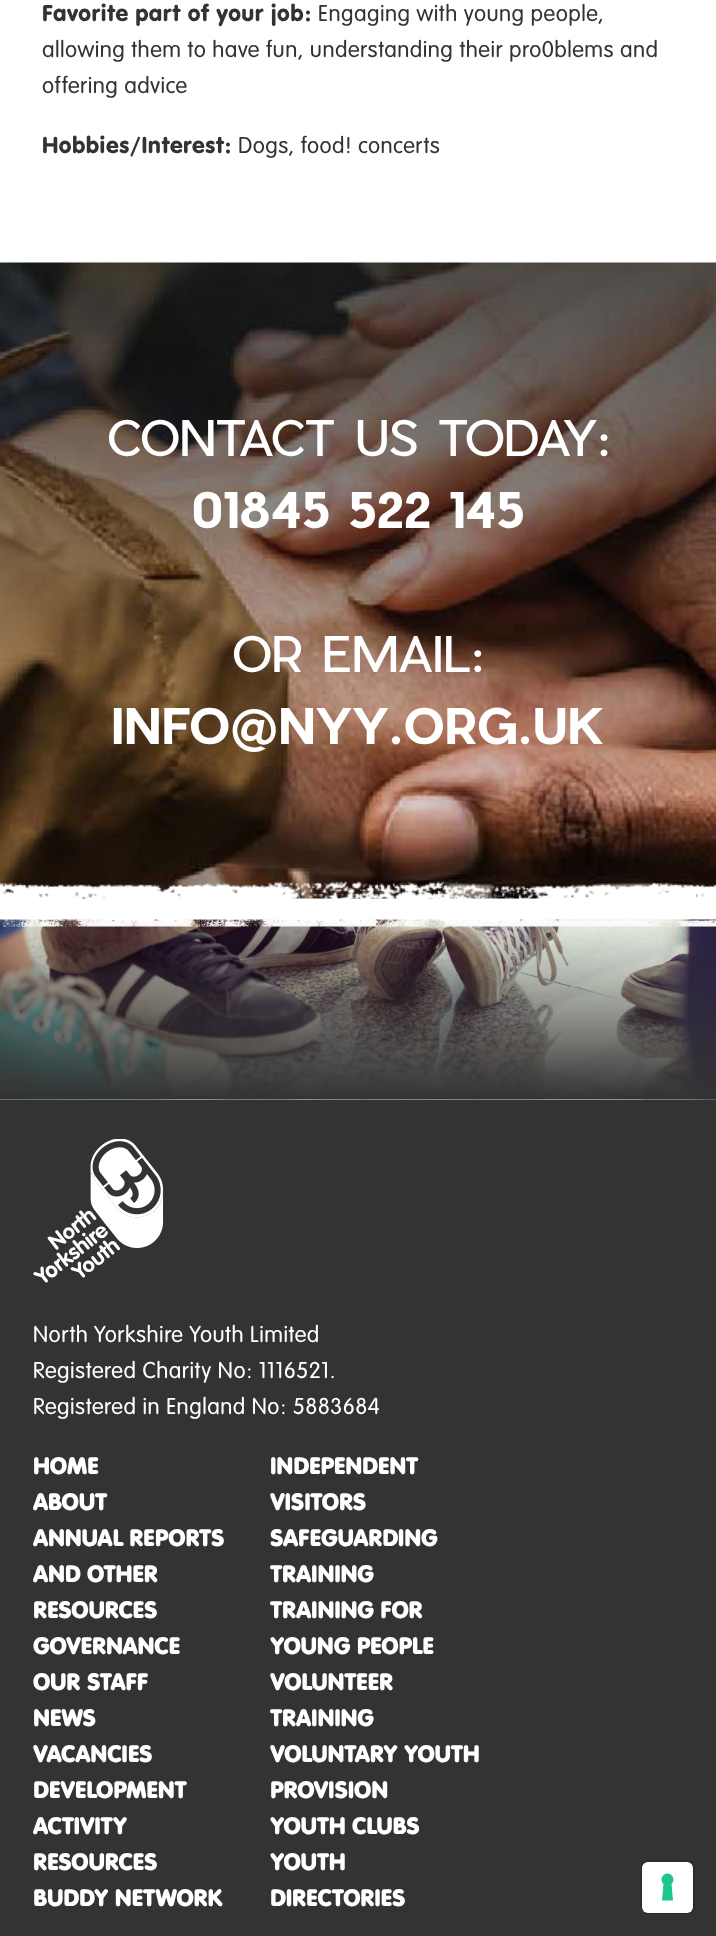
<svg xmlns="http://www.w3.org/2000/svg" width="716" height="1936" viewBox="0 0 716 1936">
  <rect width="100%" height="100%" fill="rgb(255,255,255)"/>
  <text x="42" y="21" font-family="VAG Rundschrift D" font-size="24" letter-spacing="0.45" fill="rgb(51,51,51)">Favorite part of your job:</text>
  <g font-family="VAG Rundschrift D" font-size="24" font-weight="300" letter-spacing="0.45" fill="rgb(51,51,51)">
    <text x="318" y="21">Engaging with young people,</text>
    <text>
      <tspan x="42" y="57">allowing them to have fun, understanding their pro0blems and</tspan>
      <tspan x="42" y="93">offering advice</tspan>
    </text>
  </g>
  <text x="42" y="153" font-family="VAG Rundschrift D" font-size="24" letter-spacing="0.45" fill="rgb(51,51,51)">Hobbies/Interest:</text>
  <text x="238" y="153" font-family="VAG Rundschrift D" font-size="24" font-weight="300" letter-spacing="0.45" fill="rgb(51,51,51)">Dogs, food! concerts</text>
  <image x="0" y="262" width="716" height="637" href="pic1.png"/>
  <text x="107" y="456" font-family="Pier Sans" font-size="48" letter-spacing="0.45" fill="rgb(255,255,255)">CONTACT US TODAY:</text>
  <text x="192" y="528" font-family="Pier Sans" font-size="48" font-weight="bold" letter-spacing="0.45" fill="rgb(255,255,255)">01845 522 145</text>
  <text x="232" y="672" font-family="Pier Sans" font-size="48" letter-spacing="0.45" fill="rgb(255,255,255)">OR EMAIL:</text>
  <text x="111" y="744" font-family="Pier Sans" font-size="48" font-weight="bold" letter-spacing="0.45" fill="rgb(255,255,255)">INFO@NYY.ORG.UK</text>
  <image x="0" y="881" width="716" height="18" href="pic2.png"/>
  <rect x="0" y="1100" width="716" height="836" fill="rgb(51,51,51)"/>
  <image x="0" y="919" width="716" height="181" href="pic3.png"/>
  <image x="33" y="1139" width="131" height="144" href="pic4.png"/>
  <g font-family="VAG Rundschrift D" font-size="24" font-weight="300" letter-spacing="0.45" fill="rgb(255,255,255)">
    <text>
      <tspan x="33" y="1342">North Yorkshire Youth Limited</tspan>
      <tspan x="33" y="1378">Registered Charity No: 1116521.</tspan>
      <tspan x="33" y="1414">Registered in England No: 5883684</tspan>
    </text>
  </g>
  <g font-family="VAG Rundschrift D" font-size="24" font-weight="bold" letter-spacing="0.45" fill="rgb(255,255,255)">
    <text>
      <tspan x="270" y="1474">INDEPENDENT</tspan>
      <tspan x="270" y="1510">VISITORS</tspan>
      <tspan x="270" y="1546">SAFEGUARDING</tspan>
      <tspan x="270" y="1582">TRAINING</tspan>
      <tspan x="270" y="1618">TRAINING FOR</tspan>
      <tspan x="270" y="1654">YOUNG PEOPLE</tspan>
      <tspan x="270" y="1690">VOLUNTEER</tspan>
      <tspan x="270" y="1726">TRAINING</tspan>
      <tspan x="270" y="1762">VOLUNTARY YOUTH</tspan>
      <tspan x="270" y="1798">PROVISION</tspan>
    </text>
    <text>
      <tspan x="33" y="1834">ACTIVITY</tspan>
      <tspan x="33" y="1870">RESOURCES</tspan>
    </text>
    <text x="270" y="1834">YOUTH CLUBS</text>
    <text x="33" y="1906">BUDDY NETWORK</text>
    <text>
      <tspan x="270" y="1870">YOUTH</tspan>
      <tspan x="270" y="1906">DIRECTORIES</tspan>
    </text>
    <text x="33" y="1798">DEVELOPMENT</text>
    <text>
      <tspan x="33" y="1474">HOME</tspan>
      <tspan x="33" y="1510">ABOUT</tspan>
      <tspan x="33" y="1546">ANNUAL REPORTS</tspan>
      <tspan x="33" y="1582">AND OTHER</tspan>
      <tspan x="33" y="1618">RESOURCES</tspan>
      <tspan x="33" y="1654">GOVERNANCE</tspan>
      <tspan x="33" y="1690">OUR STAFF</tspan>
      <tspan x="33" y="1726">NEWS</tspan>
      <tspan x="33" y="1762">VACANCIES</tspan>
    </text>
  </g>
  <rect x="642" y="1861" width="52" height="52" rx="7" fill="none" stroke="rgb(43,43,43)" stroke-width="2"/>
  <rect x="642" y="1862" width="51" height="51" rx="6" fill="rgb(255,255,255)"/>
  <path d="M667.5 1873.5C673 1873.5 675.5 1880.5 671.5 1884L673 1900.5H662L663.5 1884C659.5 1880.5 662 1873.5 667.5 1873.5Z" fill="rgb(28,198,145)" fill-rule="evenodd"/>
</svg>
